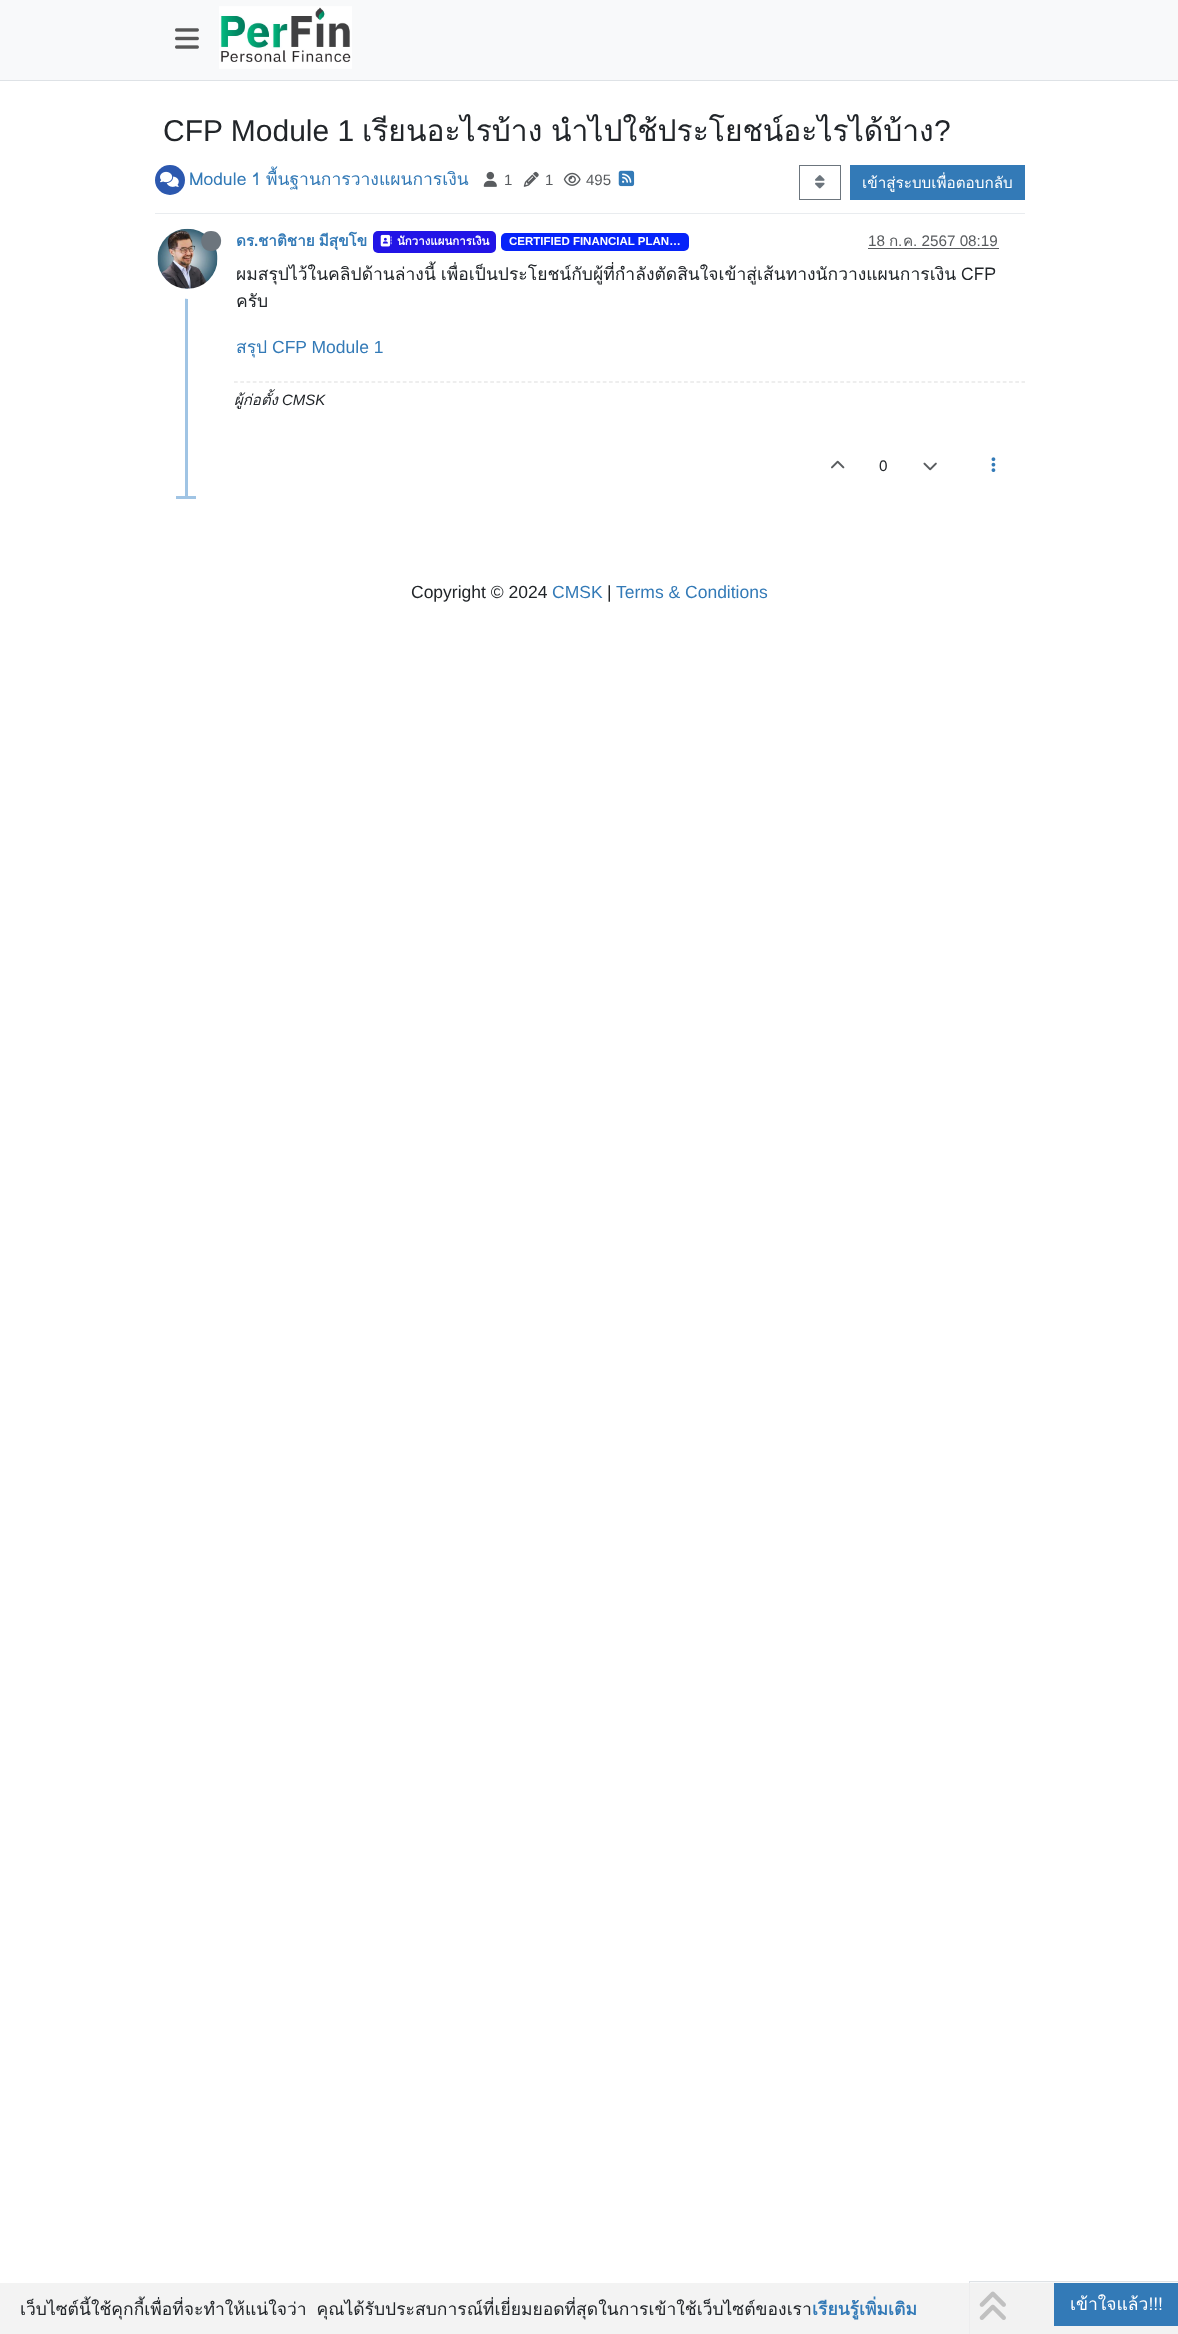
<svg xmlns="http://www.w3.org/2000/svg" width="1178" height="2334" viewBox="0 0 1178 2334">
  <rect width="100%" height="100%" fill="rgb(255,255,255)"/>
  <rect x="0" y="0" width="1178" height="80" fill="rgb(248,249,250)"/>
  <rect x="0" y="80" width="1178" height="1" fill="rgb(222,226,230)"/>
  <image x="175" y="28" width="24" height="21" href="pic1.png"/>
  <image x="219" y="6" width="133" height="63" href="pic2.png"/>
  <text x="163" y="141" font-family="Liberation Sans" font-size="30" fill="rgb(33,37,41)">CFP Module 1</text>
  <g font-family="Loma" font-size="30" fill="rgb(33,37,41)">
    <text x="362" y="141">เรียนอะไรบ้าง</text>
    <text x="551" y="141">นำไปใช้ประโยชน์อะไรได้บ้าง</text>
  </g>
  <text x="934" y="141" font-family="Liberation Sans" font-size="30" fill="rgb(33,37,41)">?</text>
  <rect x="155" y="213" width="870" height="1" fill="rgb(233,236,239)"/>
  <circle cx="170" cy="180" r="15" fill="rgb(44,88,175)"/>
  <image x="160" y="171" width="19" height="16" href="pic3.png"/>
  <text x="189" y="185" word-spacing="-1" font-family="Loma" font-size="17.5" fill="rgb(51,122,183)">Module 1 พื้นฐานการวางแผนการเงิน</text>
  <image x="483" y="171" width="14" height="16" href="pic4.png"/>
  <text x="504" y="185" font-family="Liberation Sans" font-size="15" fill="rgb(89,92,95)">1</text>
  <image x="523" y="171" width="16" height="16" href="pic5.png"/>
  <text x="545" y="185" font-family="Liberation Sans" font-size="15" fill="rgb(89,92,95)">1</text>
  <image x="563" y="172" width="18" height="14" href="pic6.png"/>
  <text x="586" y="185" font-family="Liberation Sans" font-size="15" fill="rgb(89,92,95)">495</text>
  <image x="618" y="170" width="17" height="17" href="pic7.png"/>
  <rect x="799.5" y="165.5" width="41" height="34" fill="none" stroke="rgb(108,117,125)"/>
  <image x="815" y="175" width="10" height="14" href="pic8.png"/>
  <rect x="850" y="165" width="175" height="35" fill="rgb(51,122,183)"/>
  <text x="862" y="188" font-family="Loma" font-size="15.25" fill="rgb(255,255,255)">เข้าสู่ระบบเพื่อตอบกลับ</text>
  <rect x="185" y="288" width="3" height="211" fill="rgb(160,196,228)"/>
  <circle cx="188" cy="259" r="35" fill="none" stroke="rgb(255,255,255)" stroke-width="10"/>
  <image x="157" y="228" width="61" height="61" href="pic9.png"/>
  <path d="M211 251C224.5 251 224.5 231 211 231C198 231 198 251 211 251Z" fill="rgb(108,117,125)"/>
  <text x="236" y="246" font-family="Loma" font-size="15.25" font-weight="bold" fill="rgb(51,122,183)">ดร</text>
  <text x="254" y="246" font-family="Liberation Sans" font-size="15.25" font-weight="bold" fill="rgb(51,122,183)">.</text>
  <text x="258" y="246" word-spacing="-1" font-family="Loma" font-size="15.25" font-weight="bold" fill="rgb(51,122,183)">ชาติชาย มีสุขโข</text>
  <rect x="373" y="231" width="123" height="22" rx="5" fill="rgb(34,20,230)"/>
  <image x="380" y="234" width="12" height="13" href="pic10.png"/>
  <text x="397" y="245" font-family="Loma" font-size="11.5" font-weight="bold" fill="rgb(255,255,255)">นักวางแผนการเงิน</text>
  <rect x="501" y="233" width="188" height="18" rx="5" fill="rgb(6,35,249)"/>
  <text x="509" y="245" font-family="Liberation Sans" font-size="11.5" font-weight="bold" fill="rgb(255,255,255)">CERTIFIED FINANCIAL PLAN…</text>
  <text x="868" y="246" font-family="Liberation Sans" font-size="15.25" fill="rgb(89,92,95)">18</text>
  <text x="889" y="246" font-family="Loma" font-size="15.25" fill="rgb(89,92,95)">ก</text>
  <text x="898" y="246" font-family="Liberation Sans" font-size="15.25" fill="rgb(89,92,95)">.</text>
  <rect x="868" y="248" width="131" height="1" fill="rgb(89,92,95)"/>
  <text x="903" y="246" font-family="Loma" font-size="15.25" fill="rgb(89,92,95)">ค</text>
  <text x="913" y="246" font-family="Liberation Sans" font-size="15.25" fill="rgb(89,92,95)">. 2567 08:19</text>
  <g font-family="Loma" font-size="17.5" fill="rgb(33,37,41)">
    <text>
      <tspan x="236" y="280" word-spacing="-1">ผมสรุปไว้ในคลิปด้านล่างนี้ เพื่อเป็นประโยชน์กับผู้ที่กำลังตัดสินใจเข้าสู่เส้นทางนักวางแผนการเงิน CFP</tspan>
      <tspan x="236" y="307">ครับ</tspan>
    </text>
  </g>
  <text x="236" y="353" font-family="Loma" font-size="17.5" fill="rgb(51,122,183)">สรุป</text>
  <text x="272" y="353" font-family="Liberation Sans" font-size="17.5" fill="rgb(51,122,183)">CFP Module 1</text>
  <path d="M234 382H1025" fill="none" stroke="rgb(222,222,222)" stroke-width="1.2" stroke-dasharray="3.75 2.5"/>
  <text x="234" y="405" font-family="Loma" font-size="15" font-style="italic" fill="rgb(33,37,41)">ผู้ก่อตั้ง</text>
  <text x="282" y="405" font-family="Liberation Sans" font-size="15" font-style="italic" fill="rgb(33,37,41)">CMSK</text>
  <image x="831" y="460" width="14" height="9" href="pic11.png"/>
  <text x="879" y="471" font-family="Liberation Sans" font-size="15.25" fill="rgb(33,37,41)">0</text>
  <image x="923" y="462" width="14" height="9" href="pic12.png"/>
  <image x="991" y="457" width="5" height="15" href="pic13.png"/>
  <rect x="176" y="496" width="20" height="3" fill="rgb(160,196,228)"/>
  <rect x="969.5" y="2281.5" width="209" height="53" fill="rgb(248,249,250)" stroke="rgb(222,226,230)"/>
  <image x="979" y="2291" width="27" height="29" href="pic14.png"/>
  <text x="411" y="598" font-family="Liberation Sans" font-size="17.5" fill="rgb(33,37,41)">Copyright © 2024</text>
  <text x="552" y="598" font-family="Liberation Sans" font-size="17.5" fill="rgb(51,122,183)">CMSK</text>
  <text x="607" y="598" font-family="Liberation Sans" font-size="17.5" fill="rgb(33,37,41)">|</text>
  <text x="616" y="598" font-family="Liberation Sans" font-size="17.5" fill="rgb(51,122,183)">Terms &amp; Conditions</text>
  <rect x="0" y="2283" width="1178" height="51" fill="rgba(240,240,240,0.8)"/>
  <text x="20" y="2315" word-spacing="4" font-family="Loma" font-size="17.5" fill="rgb(33,37,41)">เว็บไซต์นี้ใช้คุกกี้เพื่อที่จะทำให้แน่ใจว่า คุณได้รับประสบการณ์ที่เยี่ยมยอดที่สุดในการเข้าใช้เว็บไซต์ของเรา</text>
  <text x="812" y="2315" font-family="Loma" font-size="17.5" font-weight="bold" fill="rgb(51,122,183)">เรียนรู้เพิ่มเติม</text>
  <rect x="1054" y="2283" width="124" height="43" fill="rgb(51,122,183)"/>
  <text x="1070" y="2310" font-family="Loma" font-size="17.5" fill="rgb(255,255,255)">เข้าใจแล้ว!!!</text>
</svg>
